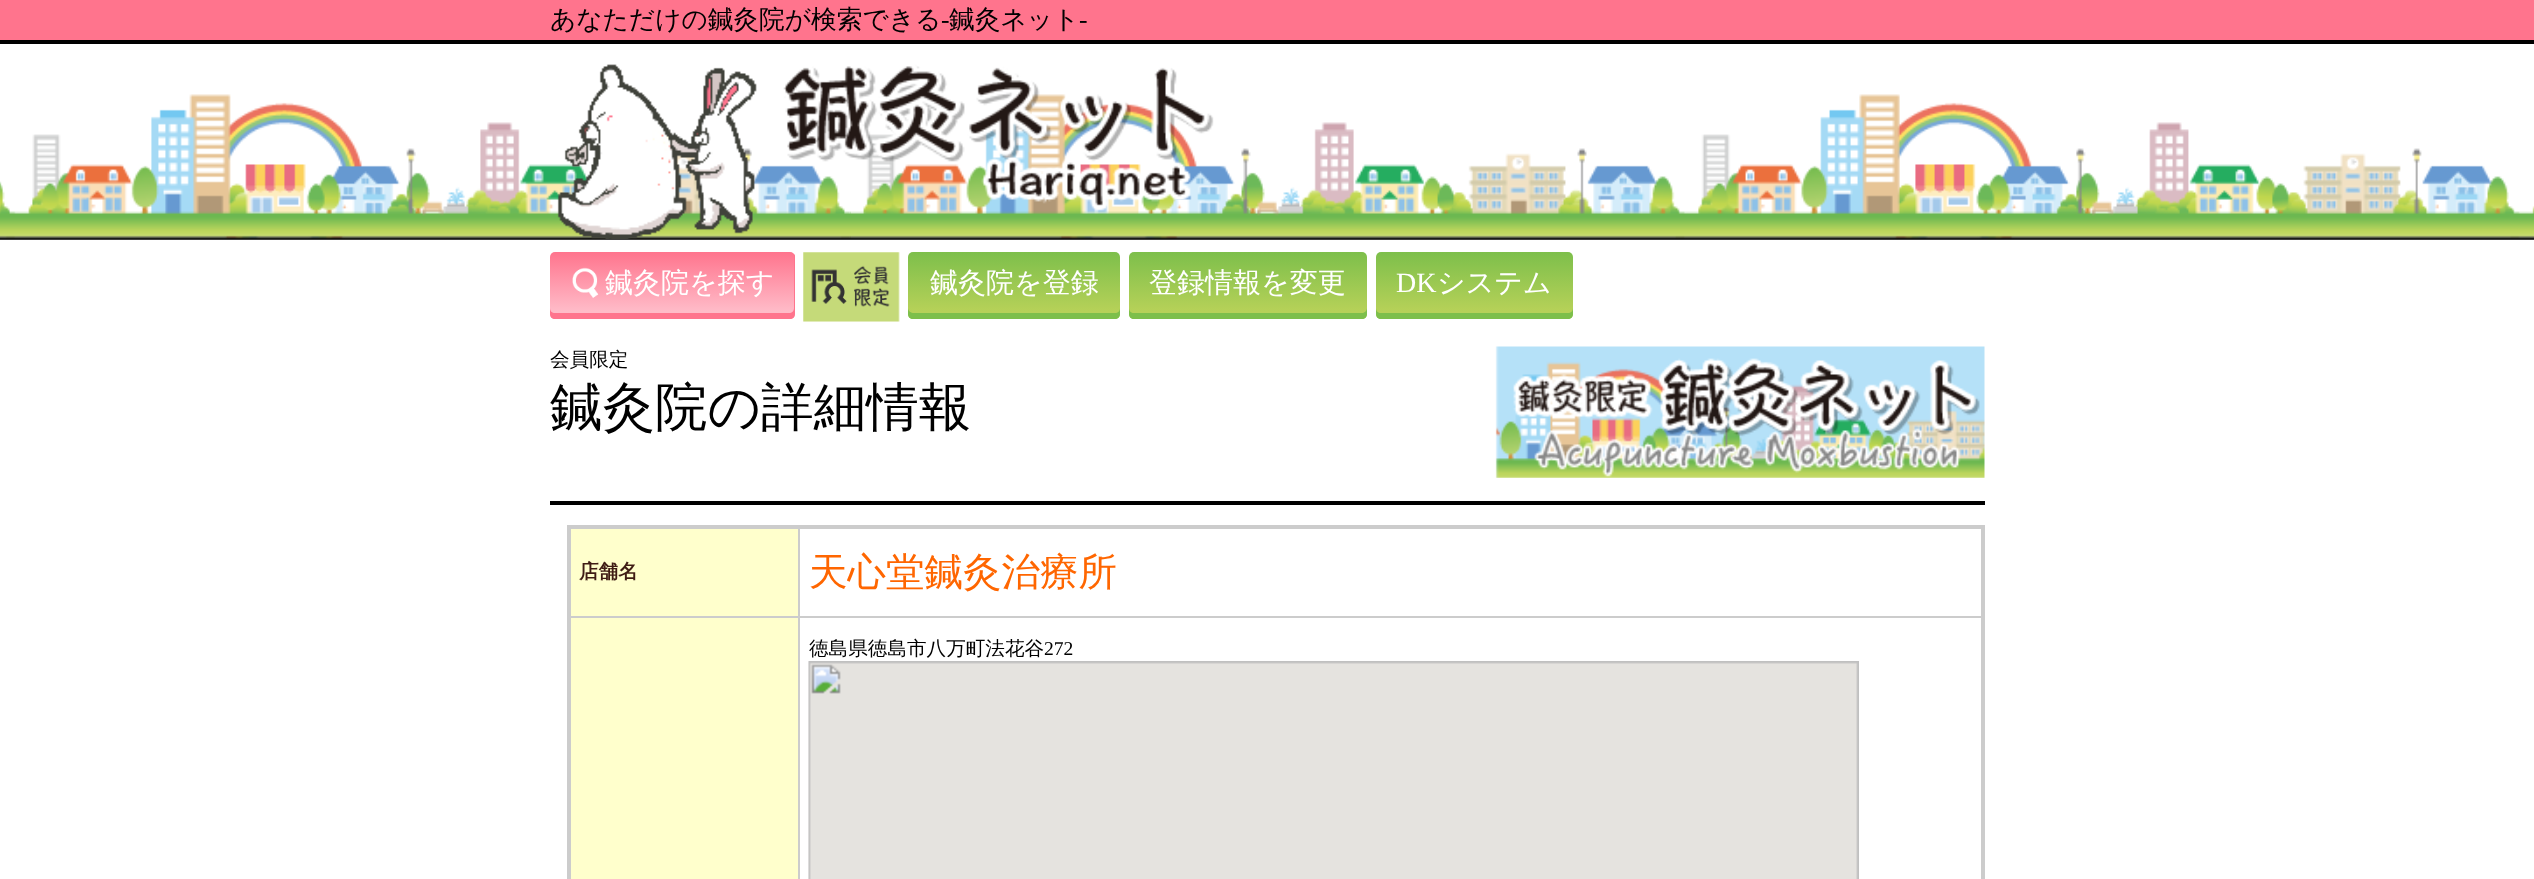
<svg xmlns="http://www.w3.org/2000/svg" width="2534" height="879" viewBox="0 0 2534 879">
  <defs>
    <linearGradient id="g1" gradientUnits="userSpaceOnUse" x1="672" y1="252" x2="672" y2="319"><stop offset="0" stop-color="rgb(255,116,141)"/><stop offset="0.88" stop-color="rgb(255,187,200)"/></linearGradient>
    <linearGradient id="g2" gradientUnits="userSpaceOnUse" x1="1014" y1="252" x2="1014" y2="319"><stop offset="0" stop-color="rgb(125,191,75)"/><stop offset="0.88" stop-color="rgb(182,209,88)"/></linearGradient>
    <linearGradient id="g3" gradientUnits="userSpaceOnUse" x1="1248" y1="252" x2="1248" y2="319"><stop offset="0" stop-color="rgb(125,191,75)"/><stop offset="0.88" stop-color="rgb(182,209,88)"/></linearGradient>
    <linearGradient id="g4" gradientUnits="userSpaceOnUse" x1="1474" y1="252" x2="1474" y2="319"><stop offset="0" stop-color="rgb(125,191,75)"/><stop offset="0.88" stop-color="rgb(182,209,88)"/></linearGradient>
  </defs>
  <rect width="100%" height="100%" fill="rgb(255,255,255)"/>
  <rect x="0" y="0" width="2534" height="40" fill="rgb(255,116,141)"/>
  <rect x="0" y="40" width="2534" height="4" fill="rgb(0,0,0)"/>
  <text x="550" y="28" font-family="WenQuanYi Zen Hei" font-size="25.7" font-weight="500" fill="rgb(0,0,0)">あなただけの鍼灸院が検索できる</text>
  <text x="941" y="28" font-family="Liberation Serif" font-size="25.7" fill="rgb(0,0,0)">-</text>
  <text x="949" y="28" font-family="WenQuanYi Zen Hei" font-size="25.7" font-weight="500" fill="rgb(0,0,0)">鍼灸ネット</text>
  <text x="1079" y="28" font-family="Liberation Serif" font-size="25.7" fill="rgb(0,0,0)">-</text>
  <image x="0" y="94" width="2534" height="146" href="pic1.png"/>
  <image x="557" y="64" width="657" height="175" href="pic2.png"/>
  <rect x="550" y="252" width="245" height="67" rx="5" fill="url(#g1)"/>
  <path d="M550 308V314C550 317 552 319 555 319H790C793 319 795 317 795 314V257C795 256 795 255 794 254V308C794 311 792 313 789 313H555C552 313 550 311 550 308Z" fill="rgb(255,116,141)"/>
  <image x="572" y="267" width="27" height="31" href="pic3.png"/>
  <text x="605" y="292" font-family="WenQuanYi Zen Hei" font-size="28" font-weight="500" fill="rgb(255,255,255)">鍼灸院を探す</text>
  <image x="803" y="252" width="97" height="70" href="pic4.png"/>
  <rect x="908" y="252" width="212" height="67" rx="5" fill="url(#g2)"/>
  <path d="M908 308V314C908 317 910 319 913 319H1115C1118 319 1120 317 1120 314V308C1120 311 1118 313 1115 313H914C911 313 908 311 908 308Z" fill="rgb(125,191,75)"/>
  <text x="930" y="292" font-family="WenQuanYi Zen Hei" font-size="28" font-weight="500" fill="rgb(255,255,255)">鍼灸院を登録</text>
  <rect x="1129" y="252" width="238" height="67" rx="5" fill="url(#g3)"/>
  <path d="M1129 308V314C1129 317 1131 319 1134 319H1362C1365 319 1367 317 1367 314V308C1367 311 1364 313 1362 313H1134C1131 313 1129 311 1129 308Z" fill="rgb(125,191,75)"/>
  <text x="1149" y="292" font-family="WenQuanYi Zen Hei" font-size="28" font-weight="500" fill="rgb(255,255,255)">登録情報を変更</text>
  <rect x="1376" y="252" width="197" height="67" rx="5" fill="url(#g4)"/>
  <path d="M1376 308V314C1376 317 1378 319 1381 319H1568C1571 319 1573 317 1573 314V308C1573 311 1571 313 1568 313H1381C1378 313 1376 311 1376 308Z" fill="rgb(125,191,75)"/>
  <text x="1396" y="292" font-family="Liberation Serif" font-size="28" fill="rgb(255,255,255)">DK</text>
  <text x="1437" y="292" font-family="WenQuanYi Zen Hei" font-size="28" font-weight="500" fill="rgb(255,255,255)">システム</text>
  <text x="550" y="366" font-family="WenQuanYi Zen Hei" font-size="19.6" font-weight="500" fill="rgb(0,0,0)">会員限定</text>
  <image x="1495" y="346" width="490" height="132" href="pic5.png"/>
  <text x="550" y="425" font-family="WenQuanYi Zen Hei" font-size="52.5" font-weight="500" fill="rgb(0,0,0)">鍼灸院の詳細情報</text>
  <rect x="550" y="501" width="1435" height="4" fill="rgb(0,0,0)"/>
  <rect x="569" y="527" width="1414" height="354" fill="none" stroke="rgb(204,204,204)" stroke-width="4"/>
  <rect x="571" y="529" width="227" height="87" fill="rgb(255,255,204)"/>
  <rect x="798" y="616" width="2" height="263" fill="rgb(204,204,204)"/>
  <rect x="798" y="616" width="1185" height="2" fill="rgb(204,204,204)"/>
  <rect x="798" y="529" width="2" height="89" fill="rgb(204,204,204)"/>
  <rect x="571" y="616" width="229" height="2" fill="rgb(204,204,204)"/>
  <text x="579" y="578" font-family="WenQuanYi Zen Hei" font-size="19.6" font-weight="bold" fill="rgb(63,28,20)">店舗名</text>
  <text x="809" y="585" font-family="WenQuanYi Zen Hei" font-size="38.5" font-weight="500" fill="rgb(255,102,0)">天心堂鍼灸治療所</text>
  <rect x="571" y="618" width="227" height="261" fill="rgb(255,255,204)"/>
  <text x="809" y="655" font-family="WenQuanYi Zen Hei" font-size="19.6" font-weight="500" fill="rgb(0,0,0)">徳島県徳島市八万町法花谷</text>
  <text x="1044" y="655" font-family="Liberation Serif" font-size="19.6" fill="rgb(0,0,0)">272</text>
  <image x="808" y="661" width="1051" height="218" href="pic6.png"/>
</svg>
